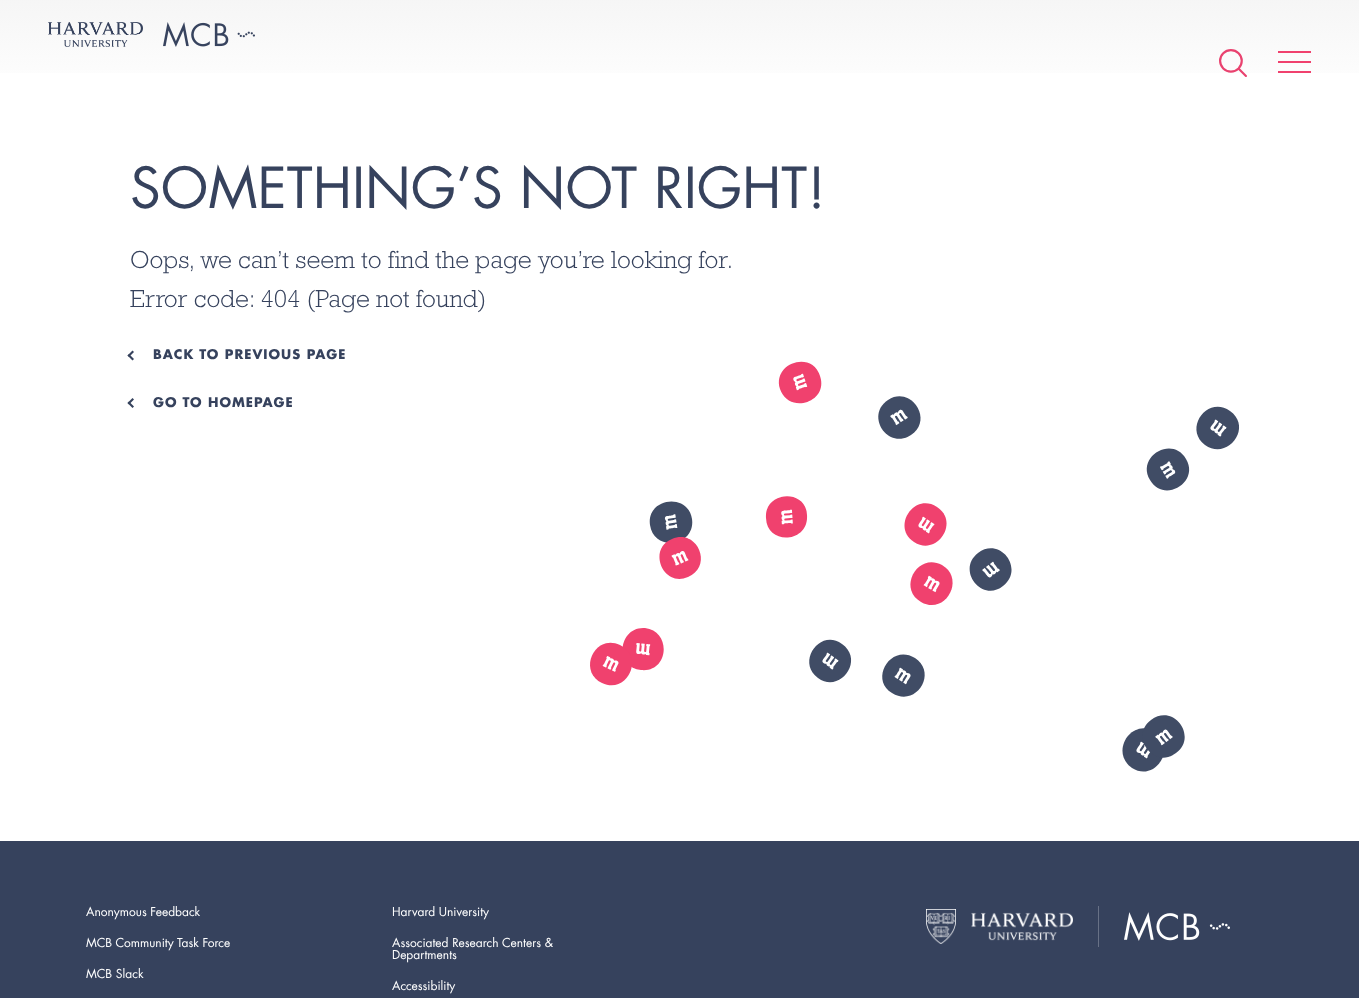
<svg xmlns="http://www.w3.org/2000/svg" width="1359" height="998" viewBox="0 0 1359 998">
  <defs>
    <linearGradient id="g1" gradientUnits="userSpaceOnUse" x1="680" y1="-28" x2="680" y2="99"><stop offset="0" stop-color="rgb(243,243,243)"/><stop offset="1" stop-color="rgb(255,255,255)"/></linearGradient>
  </defs>
  <rect width="100%" height="100%" fill="rgb(255,255,255)"/>
  <rect x="0" y="0" width="1359" height="73" fill="url(#g1)"/>
  <image x="48" y="22" width="95" height="25" href="pic1.png"/>
  <image x="163" y="22" width="92" height="25" href="pic2.png"/>
  <image x="1219" y="49" width="28" height="28" href="pic3.png"/>
  <rect x="1278" y="51" width="33" height="2" fill="rgb(240,65,110)"/>
  <rect x="1278" y="61" width="33" height="2" fill="rgb(240,65,110)"/>
  <rect x="1278" y="71" width="33" height="2" fill="rgb(240,65,110)"/>
  <text x="130" y="208" font-family="Futura" font-size="55" fill="rgb(54,66,93)">SOMETHING’S NOT RIGHT!</text>
  <g font-family="Rockwell" font-size="25" font-weight="300" fill="rgb(54,66,93)">
    <text>
      <tspan x="130" y="268">Oops, we can’t seem to find the page you’re looking for.</tspan>
      <tspan x="130" y="307">Error code: 404 (Page not found)</tspan>
    </text>
  </g>
  <path d="M127.5 355.5L132.5 350.5L134 352L129 357Z" fill="rgb(54,66,93)"/>
  <path d="M127.5 355.5L129 354L134 359L132.5 360.5Z" fill="rgb(54,66,93)"/>
  <text x="153" y="359" font-family="Futura" font-size="13" font-weight="bold" letter-spacing="1" fill="rgb(54,66,93)">BACK TO PREVIOUS PAGE</text>
  <path d="M127.5 403L132.5 398L134 399.5L129 404.5Z" fill="rgb(54,66,93)"/>
  <path d="M127.5 403L129 401.5L134 406.5L132.5 408Z" fill="rgb(54,66,93)"/>
  <text x="153" y="407" font-family="Futura" font-size="13" font-weight="bold" letter-spacing="1" fill="rgb(54,66,93)">GO TO HOMEPAGE</text>
  <path d="M780 389C772 363 812 350 820 376C829 402 789 415 780 389Z" fill="rgb(240,65,110)"/>
  <image x="793" y="373" width="15" height="18" href="pic4.png"/>
  <path d="M888 400C911 385 934 420 911 435C887 450 865 415 888 400Z" fill="rgb(64,76,101)"/>
  <image x="890" y="409" width="18" height="17" href="pic5.png"/>
  <path d="M1205 445C1183 428 1208 395 1230 411C1253 427 1228 461 1205 445Z" fill="rgb(64,76,101)"/>
  <image x="1210" y="419" width="17" height="18" href="pic6.png"/>
  <path d="M1186 459C1200 482 1164 504 1150 480C1136 457 1172 435 1186 459Z" fill="rgb(64,76,101)"/>
  <image x="1160" y="461" width="16" height="18" href="pic7.png"/>
  <path d="M650 525C646 498 688 492 692 519C696 546 654 553 650 525Z" fill="rgb(64,76,101)"/>
  <image x="664" y="514" width="14" height="16" href="pic8.png"/>
  <path d="M766 518C764 491 806 488 807 515C809 543 767 546 766 518Z" fill="rgb(240,65,110)"/>
  <image x="781" y="509" width="12" height="16" href="pic9.png"/>
  <path d="M914 542C891 527 914 492 937 507C960 522 937 557 914 542Z" fill="rgb(240,65,110)"/>
  <image x="918" y="516" width="17" height="18" href="pic10.png"/>
  <path d="M672 539C697 528 714 566 688 577C663 588 647 549 672 539Z" fill="rgb(240,65,110)"/>
  <image x="671" y="551" width="18" height="15" href="pic11.png"/>
  <path d="M942 565C966 579 945 616 921 602C897 588 918 552 942 565Z" fill="rgb(240,65,110)"/>
  <image x="923" y="575" width="17" height="18" href="pic12.png"/>
  <path d="M1003 586C982 603 956 570 978 553C1000 536 1025 569 1003 586Z" fill="rgb(64,76,101)"/>
  <image x="982" y="561" width="18" height="17" href="pic13.png"/>
  <path d="M641 670C614 668 618 626 645 628C672 631 669 673 641 670Z" fill="rgb(240,65,110)"/>
  <path d="M620 645C645 657 627 695 602 683C577 671 595 633 620 645Z" fill="rgb(240,65,110)"/>
  <image x="602" y="656" width="17" height="16" href="pic14.png"/>
  <image x="636" y="643" width="15" height="13" href="pic15.png"/>
  <path d="M818 678C796 662 820 628 842 644C865 660 840 694 818 678Z" fill="rgb(64,76,101)"/>
  <image x="822" y="652" width="17" height="18" href="pic16.png"/>
  <path d="M915 658C938 673 916 708 892 693C869 679 891 643 915 658Z" fill="rgb(64,76,101)"/>
  <image x="894" y="667" width="17" height="18" href="pic17.png"/>
  <path d="M1132 768C1109 752 1132 717 1155 732C1178 747 1155 783 1132 768Z" fill="rgb(64,76,101)"/>
  <image x="1136" y="741" width="15" height="18" href="pic19.png"/>
  <path d="M1151 720C1174 703 1198 737 1176 753C1154 770 1129 736 1151 720Z" fill="rgb(64,76,101)"/>
  <image x="1155" y="729" width="18" height="17" href="pic18.png"/>
  <rect x="0" y="841" width="1359" height="157" fill="rgb(54,66,93)"/>
  <g font-family="Futura" font-size="12" fill="rgb(255,255,255)">
    <text x="86" y="916">Anonymous Feedback</text>
    <text x="86" y="947">MCB Community Task Force</text>
    <text x="86" y="978">MCB Slack</text>
    <text x="392" y="916">Harvard University</text>
    <text>
      <tspan x="392" y="947">Associated Research Centers &amp;</tspan>
      <tspan x="392" y="959">Departments</tspan>
    </text>
    <text x="392" y="990">Accessibility</text>
  </g>
  <rect x="1098" y="906" width="1" height="41" fill="rgb(104,113,134)"/>
  <image x="926" y="909" width="147" height="35" href="pic20.png"/>
  <image x="1124" y="912" width="106" height="29" href="pic21.png"/>
</svg>
